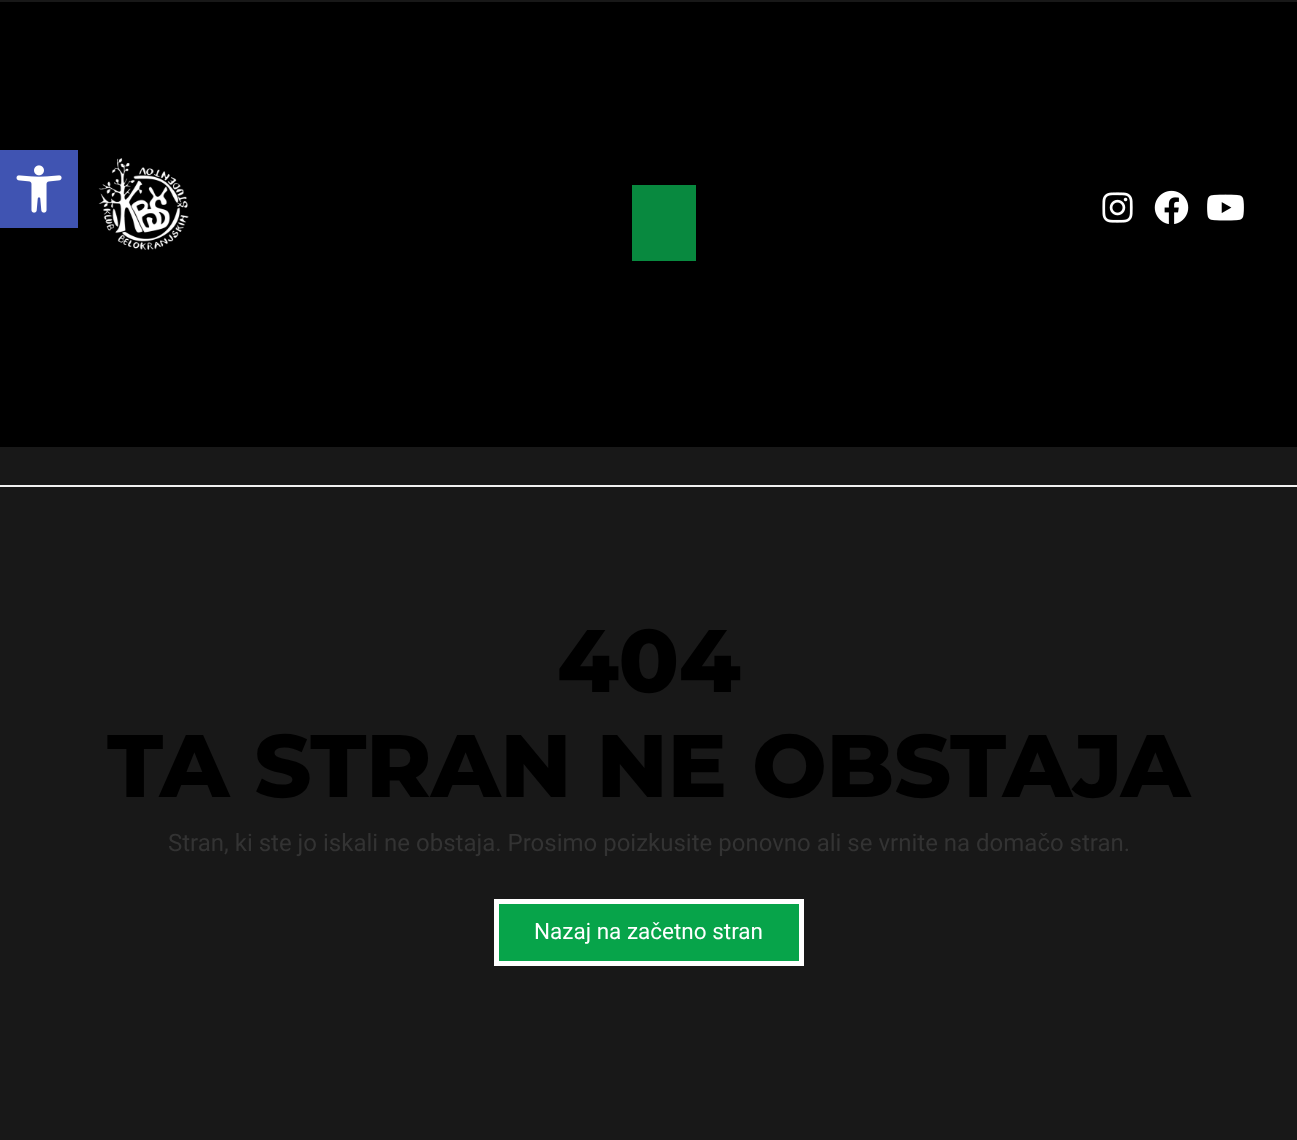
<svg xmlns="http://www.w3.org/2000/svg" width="1297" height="1140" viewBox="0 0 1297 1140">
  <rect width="100%" height="100%" fill="rgb(24,24,24)"/>
  <rect x="0" y="2" width="1297" height="445" fill="rgb(0,0,0)"/>
  <image x="98" y="158" width="91" height="92" href="pic1.png"/>
  <rect x="632" y="185" width="64" height="76" fill="rgb(8,137,63)"/>
  <image x="1102" y="192" width="31" height="31" href="pic2.png"/>
  <image x="1154" y="190" width="35" height="34" href="pic3.png"/>
  <image x="1207" y="194" width="37" height="27" href="pic4.png"/>
  <rect x="0" y="150" width="78" height="78" fill="rgb(64,84,178)"/>
  <image x="16" y="165" width="46" height="48" href="pic5.png"/>
  <rect x="0" y="485" width="1297" height="2" fill="rgb(240,240,240)"/>
  <g font-family="Montserrat" font-size="88.5" font-weight="800" letter-spacing="-0.4" fill="rgb(0,0,0)">
    <text x="557" y="692">404</text>
    <text x="107" y="797">TA STRAN NE OBSTAJA</text>
  </g>
  <text x="168" y="851" font-family="Roboto" font-size="24" fill="rgb(51,51,51)">Stran, ki ste jo iskali ne obstaja. Prosimo poizkusite ponovno ali se vrnite na domačo stran.</text>
  <rect x="496.5" y="901.5" width="305" height="62" fill="rgb(7,164,74)" stroke="rgb(255,255,255)" stroke-width="5"/>
  <text x="534" y="939" font-family="Roboto" font-size="22.5" fill="rgb(255,255,255)">Nazaj na začetno stran</text>
</svg>
